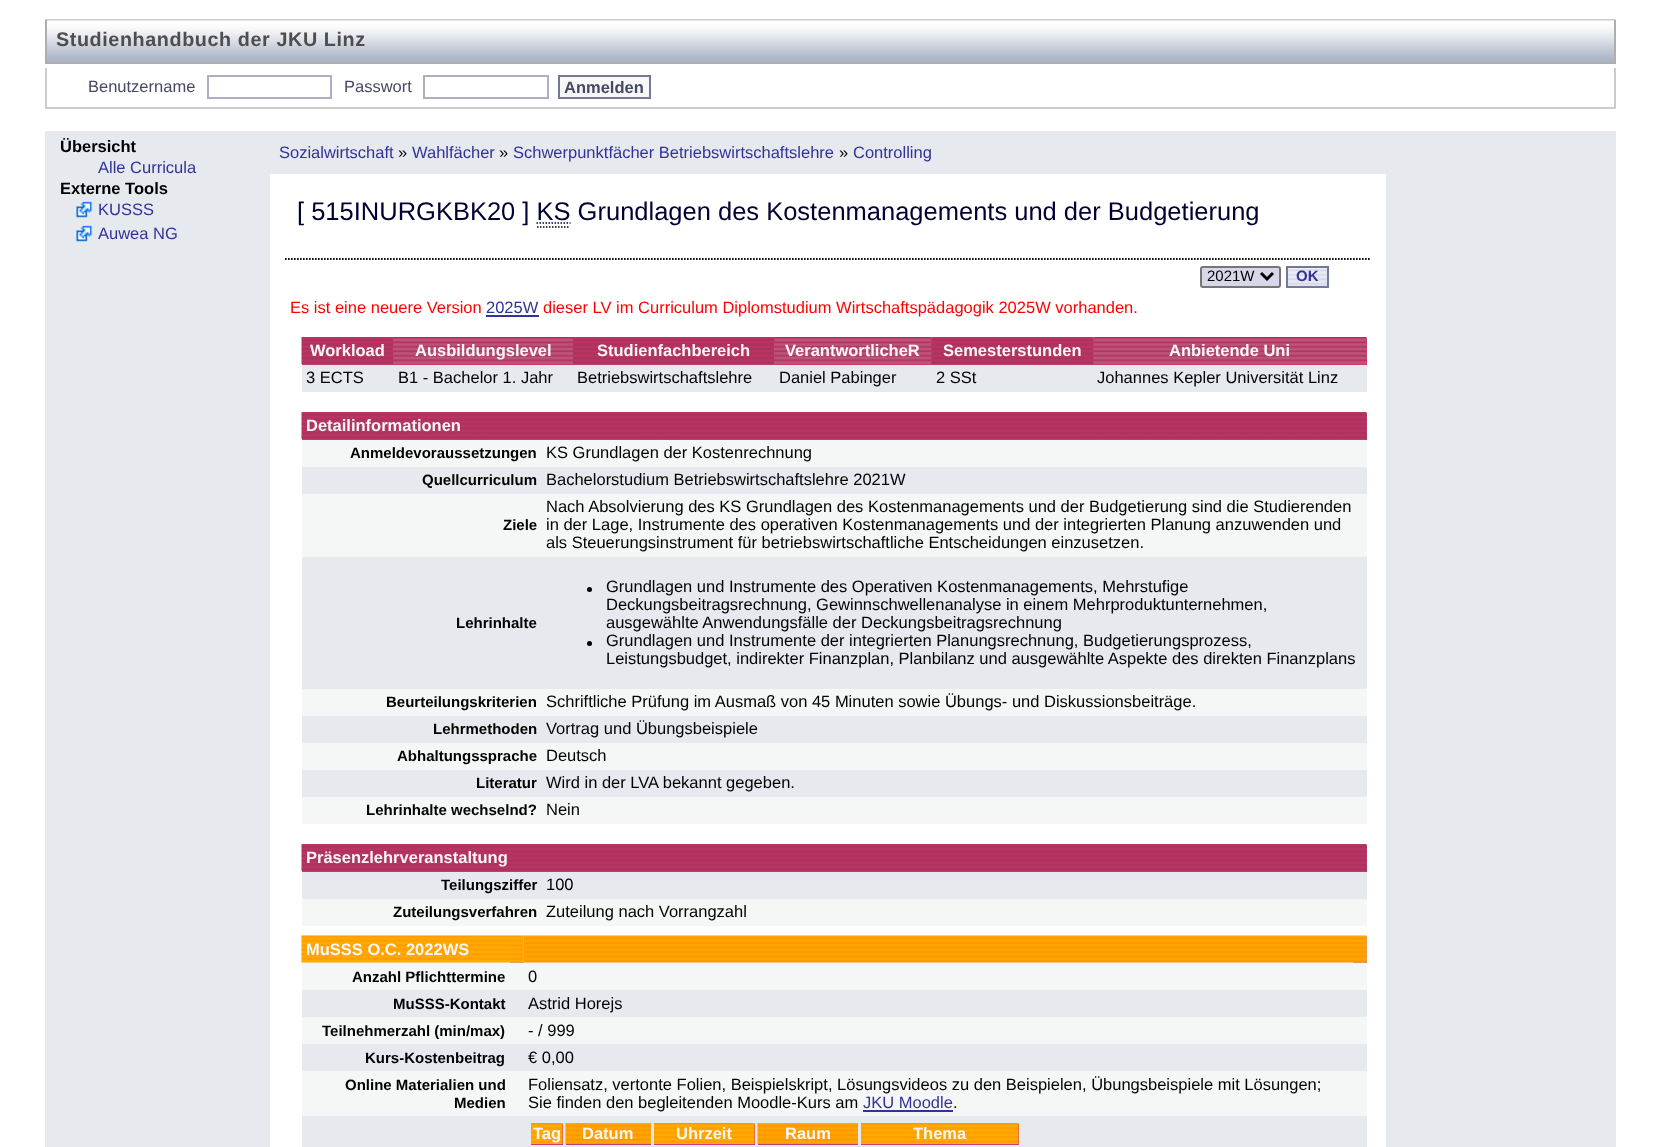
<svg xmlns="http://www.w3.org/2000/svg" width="1660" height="1147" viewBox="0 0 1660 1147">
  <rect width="100%" height="100%" fill="rgb(255,255,255)"/>
  <image x="45" y="19" width="1571" height="43" href="pic1.png"/>
  <rect x="1614" y="20" width="2" height="43" fill="rgb(174,174,174)"/>
  <rect x="45" y="62" width="1571" height="2" fill="rgb(174,174,174)"/>
  <rect x="45" y="20" width="2" height="43" fill="rgb(174,174,174)"/>
  <text x="56" y="46" font-family="Liberation Sans" font-size="19.75" font-weight="bold" letter-spacing="0.6" fill="rgb(78,78,78)">Studienhandbuch der JKU Linz</text>
  <rect x="1614" y="68" width="2" height="40" fill="rgb(204,204,204)"/>
  <rect x="45" y="107" width="1571" height="2" fill="rgb(204,204,204)"/>
  <rect x="45" y="68" width="2" height="40" fill="rgb(204,204,204)"/>
  <text x="88" y="92" font-family="Liberation Sans" font-size="16.5" fill="rgb(71,71,102)">Benutzername</text>
  <rect x="208" y="76" width="123" height="22" fill="none" stroke="rgb(176,174,195)" stroke-width="2"/>
  <text x="344" y="92" font-family="Liberation Sans" font-size="16.5" fill="rgb(71,71,102)">Passwort</text>
  <rect x="424" y="76" width="124" height="22" fill="none" stroke="rgb(176,174,195)" stroke-width="2"/>
  <rect x="559" y="76" width="91" height="22" fill="rgb(247,247,247)" stroke="rgb(116,120,149)" stroke-width="2"/>
  <text x="564" y="93" font-family="Liberation Sans" font-size="16.5" font-weight="bold" fill="rgb(71,71,102)">Anmelden</text>
  <rect x="45" y="131" width="225" height="1016" fill="rgb(230,233,238)"/>
  <text x="60" y="152" font-family="Liberation Sans" font-size="16.5" font-weight="bold" fill="rgb(0,0,0)">Übersicht</text>
  <text x="98" y="173" font-family="Liberation Sans" font-size="16.5" fill="rgb(51,50,152)">Alle Curricula</text>
  <text x="60" y="194" font-family="Liberation Sans" font-size="16.5" font-weight="bold" fill="rgb(0,0,0)">Externe Tools</text>
  <image x="76" y="201" width="16" height="17" href="pic2.png"/>
  <text x="98" y="215" font-family="Liberation Sans" font-size="16.5" fill="rgb(51,50,152)">KUSSS</text>
  <image x="76" y="225" width="16" height="17" href="pic2.png"/>
  <text x="98" y="239" font-family="Liberation Sans" font-size="16.5" fill="rgb(51,50,152)">Auwea NG</text>
  <rect x="270" y="131" width="1346" height="43" fill="rgb(230,233,238)"/>
  <text x="279" y="158" font-family="Liberation Sans" font-size="16.5" fill="rgb(51,50,152)">Sozialwirtschaft</text>
  <text x="398" y="158" font-family="Liberation Sans" font-size="16.5" fill="rgb(0,0,0)">»</text>
  <text x="412" y="158" font-family="Liberation Sans" font-size="16.5" fill="rgb(51,50,152)">Wahlfächer</text>
  <text x="499" y="158" font-family="Liberation Sans" font-size="16.5" fill="rgb(0,0,0)">»</text>
  <text x="513" y="158" font-family="Liberation Sans" font-size="16.5" fill="rgb(51,50,152)">Schwerpunktfächer Betriebswirtschaftslehre</text>
  <text x="839" y="158" font-family="Liberation Sans" font-size="16.5" fill="rgb(0,0,0)">»</text>
  <text x="853" y="158" font-family="Liberation Sans" font-size="16.5" fill="rgb(51,50,152)">Controlling</text>
  <rect x="1386" y="173" width="2" height="974" fill="rgb(230,233,238)"/>
  <path d="M285 259H1371" fill="none" stroke="rgb(0,0,0)" stroke-width="1.5" stroke-dasharray="1.5 1.5"/>
  <path d="M285 259H1371" fill="none" stroke="rgb(0,0,0)" stroke-width="1.5" stroke-dasharray="1.5 1.5"/>
  <text x="297" y="220" font-family="Liberation Sans" font-size="25.5" fill="rgb(0,0,51)">[ 515INURGKBK20 ] KS Grundlagen des Kostenmanagements und der Budgetierung</text>
  <path d="M536.5 223H570.5" fill="none" stroke="rgb(0,0,51)" stroke-width="1.5" stroke-dasharray="1.5 1.5"/>
  <path d="M537 227H570" fill="none" stroke="rgb(0,0,0)" stroke-width="1.5" stroke-dasharray="1.5 1.5"/>
  <rect x="1201" y="267" width="79" height="20" rx="2" fill="rgb(214,215,233)" stroke="rgb(118,118,118)" stroke-width="2"/>
  <path d="M1261 273L1267 279L1273 273" fill="none" stroke="rgb(0,0,0)" stroke-width="3"/>
  <text x="1207" y="281" font-family="Liberation Sans" font-size="15" fill="rgb(0,0,0)">2021W</text>
  <image x="1288" y="268" width="39" height="18" href="pic3.png"/>
  <rect x="1287" y="267" width="41" height="20" fill="none" stroke="rgb(116,120,149)" stroke-width="2"/>
  <text x="1296" y="281" font-family="Liberation Sans" font-size="15" font-weight="bold" fill="rgb(51,50,152)">OK</text>
  <text x="290" y="313" font-family="Liberation Sans" font-size="16.5" fill="rgb(255,0,0)">Es ist eine neuere Version</text>
  <text x="486" y="313" font-family="Liberation Sans" font-size="16.5" fill="rgb(51,50,152)">2025W</text>
  <rect x="486" y="315" width="53" height="2" fill="rgb(51,50,152)"/>
  <text x="543" y="313" font-family="Liberation Sans" font-size="16.5" fill="rgb(255,0,0)">dieser LV im Curriculum Diplomstudium Wirtschaftspädagogik 2025W vorhanden.</text>
  <rect x="302" y="364" width="91" height="1" fill="rgb(178,67,114)"/>
  <image x="301" y="337" width="92" height="27" href="pic4.png"/>
  <text x="310" y="356" font-family="Liberation Sans" font-size="16.5" font-weight="bold" fill="rgb(247,247,247)">Workload</text>
  <rect x="393" y="364" width="180" height="1" fill="rgb(208,59,111)"/>
  <image x="393" y="337" width="180" height="27" href="pic5.png"/>
  <text x="415" y="356" font-family="Liberation Sans" font-size="16.5" font-weight="bold" fill="rgb(247,247,247)">Ausbildungslevel</text>
  <rect x="573" y="364" width="201" height="1" fill="rgb(178,67,114)"/>
  <image x="573" y="337" width="201" height="27" href="pic6.png"/>
  <text x="597" y="356" font-family="Liberation Sans" font-size="16.5" font-weight="bold" fill="rgb(247,247,247)">Studienfachbereich</text>
  <rect x="774" y="338" width="158" height="27" fill="rgb(208,59,111)"/>
  <image x="774" y="337" width="158" height="27" href="pic7.png"/>
  <text x="785" y="356" font-family="Liberation Sans" font-size="16.5" font-weight="bold" fill="rgb(247,247,247)">VerantwortlicheR</text>
  <rect x="932" y="338" width="162" height="27" fill="rgb(178,67,114)"/>
  <image x="931" y="337" width="163" height="27" href="pic8.png"/>
  <text x="943" y="356" font-family="Liberation Sans" font-size="16.5" font-weight="bold" fill="rgb(247,247,247)">Semesterstunden</text>
  <rect x="1094" y="338" width="273" height="27" fill="rgb(208,59,111)"/>
  <image x="1093" y="337" width="274" height="27" href="pic9.png"/>
  <text x="1169" y="356" font-family="Liberation Sans" font-size="16.5" font-weight="bold" fill="rgb(247,247,247)">Anbietende Uni</text>
  <rect x="302" y="365" width="1065" height="27" fill="rgb(230,233,237)"/>
  <g font-family="Liberation Sans" font-size="16.5" fill="rgb(0,0,0)">
    <text x="306" y="383">3 ECTS</text>
    <text x="398" y="383">B1 - Bachelor 1. Jahr</text>
    <text x="577" y="383">Betriebswirtschaftslehre</text>
    <text x="779" y="383">Daniel Pabinger</text>
    <text x="936" y="383">2 SSt</text>
    <text x="1097" y="383">Johannes Kepler Universität Linz</text>
  </g>
  <rect x="302" y="413" width="1065" height="27" fill="rgb(178,67,114)"/>
  <image x="301" y="412" width="1066" height="27" href="pic10.png"/>
  <text x="306" y="431" font-family="Liberation Sans" font-size="16.5" font-weight="bold" fill="rgb(247,247,247)">Detailinformationen</text>
  <rect x="302" y="440" width="1065" height="27" fill="rgb(245,247,247)"/>
  <text x="350" y="458" font-family="Liberation Sans" font-size="15" font-weight="bold" fill="rgb(0,0,0)">Anmeldevoraussetzungen</text>
  <text x="546" y="458" font-family="Liberation Sans" font-size="16.5" fill="rgb(0,0,0)">KS Grundlagen der Kostenrechnung</text>
  <rect x="302" y="467" width="1065" height="27" fill="rgb(230,233,237)"/>
  <text x="422" y="485" font-family="Liberation Sans" font-size="15" font-weight="bold" fill="rgb(0,0,0)">Quellcurriculum</text>
  <text x="546" y="485" font-family="Liberation Sans" font-size="16.5" fill="rgb(0,0,0)">Bachelorstudium Betriebswirtschaftslehre 2021W</text>
  <rect x="302" y="494" width="1065" height="63" fill="rgb(245,247,247)"/>
  <text x="503" y="530" font-family="Liberation Sans" font-size="15" font-weight="bold" fill="rgb(0,0,0)">Ziele</text>
  <g font-family="Liberation Sans" font-size="16.5" fill="rgb(0,0,0)">
    <text>
      <tspan x="546" y="512">Nach Absolvierung des KS Grundlagen des Kostenmanagements und der Budgetierung sind die Studierenden</tspan>
      <tspan x="546" y="530">in der Lage, Instrumente des operativen Kostenmanagements und der integrierten Planung anzuwenden und</tspan>
      <tspan x="546" y="548">als Steuerungsinstrument für betriebswirtschaftliche Entscheidungen einzusetzen.</tspan>
    </text>
  </g>
  <rect x="302" y="557" width="1065" height="132" fill="rgb(230,233,237)"/>
  <text x="456" y="628" font-family="Liberation Sans" font-size="15" font-weight="bold" fill="rgb(0,0,0)">Lehrinhalte</text>
  <circle cx="589.5" cy="589.5" r="2.5" fill="rgb(0,0,0)"/>
  <g font-family="Liberation Sans" font-size="16.5" fill="rgb(0,0,0)">
    <text>
      <tspan x="606" y="592">Grundlagen und Instrumente des Operativen Kostenmanagements, Mehrstufige</tspan>
      <tspan x="606" y="610">Deckungsbeitragsrechnung, Gewinnschwellenanalyse in einem Mehrproduktunternehmen,</tspan>
      <tspan x="606" y="628">ausgewählte Anwendungsfälle der Deckungsbeitragsrechnung</tspan>
    </text>
  </g>
  <circle cx="589.5" cy="643.5" r="2.5" fill="rgb(0,0,0)"/>
  <g font-family="Liberation Sans" font-size="16.5" fill="rgb(0,0,0)">
    <text>
      <tspan x="606" y="646">Grundlagen und Instrumente der integrierten Planungsrechnung, Budgetierungsprozess,</tspan>
      <tspan x="606" y="664">Leistungsbudget, indirekter Finanzplan, Planbilanz und ausgewählte Aspekte des direkten Finanzplans</tspan>
    </text>
  </g>
  <rect x="302" y="689" width="1065" height="27" fill="rgb(245,247,247)"/>
  <text x="386" y="707" font-family="Liberation Sans" font-size="15" font-weight="bold" fill="rgb(0,0,0)">Beurteilungskriterien</text>
  <text x="546" y="707" font-family="Liberation Sans" font-size="16.5" fill="rgb(0,0,0)">Schriftliche Prüfung im Ausmaß von 45 Minuten sowie Übungs- und Diskussionsbeiträge.</text>
  <rect x="302" y="716" width="1065" height="27" fill="rgb(230,233,237)"/>
  <text x="433" y="734" font-family="Liberation Sans" font-size="15" font-weight="bold" fill="rgb(0,0,0)">Lehrmethoden</text>
  <text x="546" y="734" font-family="Liberation Sans" font-size="16.5" fill="rgb(0,0,0)">Vortrag und Übungsbeispiele</text>
  <rect x="302" y="743" width="1065" height="27" fill="rgb(245,247,247)"/>
  <text x="397" y="761" font-family="Liberation Sans" font-size="15" font-weight="bold" fill="rgb(0,0,0)">Abhaltungssprache</text>
  <text x="546" y="761" font-family="Liberation Sans" font-size="16.5" fill="rgb(0,0,0)">Deutsch</text>
  <rect x="302" y="770" width="1065" height="27" fill="rgb(230,233,237)"/>
  <text x="476" y="788" font-family="Liberation Sans" font-size="15" font-weight="bold" fill="rgb(0,0,0)">Literatur</text>
  <text x="546" y="788" font-family="Liberation Sans" font-size="16.5" fill="rgb(0,0,0)">Wird in der LVA bekannt gegeben.</text>
  <rect x="302" y="797" width="1065" height="27" fill="rgb(245,247,247)"/>
  <text x="366" y="815" font-family="Liberation Sans" font-size="15" font-weight="bold" fill="rgb(0,0,0)">Lehrinhalte wechselnd?</text>
  <text x="546" y="815" font-family="Liberation Sans" font-size="16.5" fill="rgb(0,0,0)">Nein</text>
  <rect x="302" y="845" width="1065" height="27" fill="rgb(178,67,114)"/>
  <image x="301" y="844" width="1066" height="27" href="pic11.png"/>
  <text x="306" y="863" font-family="Liberation Sans" font-size="16.5" font-weight="bold" fill="rgb(247,247,247)">Präsenzlehrveranstaltung</text>
  <rect x="302" y="872" width="1065" height="27" fill="rgb(230,233,237)"/>
  <text x="441" y="890" font-family="Liberation Sans" font-size="15" font-weight="bold" fill="rgb(0,0,0)">Teilungsziffer</text>
  <text x="546" y="890" font-family="Liberation Sans" font-size="16.5" fill="rgb(0,0,0)">100</text>
  <rect x="302" y="899" width="1065" height="27" fill="rgb(245,247,247)"/>
  <text x="393" y="917" font-family="Liberation Sans" font-size="15" font-weight="bold" fill="rgb(0,0,0)">Zuteilungsverfahren</text>
  <text x="546" y="917" font-family="Liberation Sans" font-size="16.5" fill="rgb(0,0,0)">Zuteilung nach Vorrangzahl</text>
  <image x="301" y="935" width="209" height="28" href="pic12.png"/>
  <text x="306" y="955" font-family="Liberation Sans" font-size="16.5" font-weight="bold" fill="rgb(247,247,247)">MuSSS O.C. 2022WS</text>
  <rect x="510" y="936" width="14" height="27" fill="rgb(208,59,111)"/>
  <image x="510" y="935" width="14" height="28" href="pic13.png"/>
  <image x="523" y="935" width="830" height="28" href="pic14.png"/>
  <rect x="1353" y="936" width="14" height="27" fill="rgb(178,67,114)"/>
  <image x="1353" y="935" width="14" height="28" href="pic15.png"/>
  <rect x="302" y="963" width="1065" height="27" fill="rgb(245,247,247)"/>
  <text x="352" y="982" font-family="Liberation Sans" font-size="15" font-weight="bold" fill="rgb(0,0,0)">Anzahl Pflichttermine</text>
  <text x="528" y="982" font-family="Liberation Sans" font-size="16.5" fill="rgb(0,0,0)">0</text>
  <rect x="302" y="990" width="1065" height="27" fill="rgb(230,233,237)"/>
  <text x="393" y="1009" font-family="Liberation Sans" font-size="15" font-weight="bold" fill="rgb(0,0,0)">MuSSS-Kontakt</text>
  <text x="528" y="1009" font-family="Liberation Sans" font-size="16.5" fill="rgb(0,0,0)">Astrid Horejs</text>
  <rect x="302" y="1017" width="1065" height="27" fill="rgb(245,247,247)"/>
  <text x="322" y="1036" font-family="Liberation Sans" font-size="15" font-weight="bold" fill="rgb(0,0,0)">Teilnehmerzahl (min/max)</text>
  <text x="528" y="1036" font-family="Liberation Sans" font-size="16.5" fill="rgb(0,0,0)">- / 999</text>
  <rect x="302" y="1044" width="1065" height="27" fill="rgb(230,233,237)"/>
  <text x="365" y="1063" font-family="Liberation Sans" font-size="15" font-weight="bold" fill="rgb(0,0,0)">Kurs-Kostenbeitrag</text>
  <text x="528" y="1063" font-family="Liberation Sans" font-size="16.5" fill="rgb(0,0,0)">€ 0,00</text>
  <rect x="302" y="1071" width="1065" height="45" fill="rgb(245,247,247)"/>
  <g font-family="Liberation Sans" font-size="15" font-weight="bold" fill="rgb(0,0,0)">
    <text x="345" y="1090">Online Materialien und</text>
    <text x="454" y="1108">Medien</text>
  </g>
  <g font-family="Liberation Sans" font-size="16.5" fill="rgb(0,0,0)">
    <text>
      <tspan x="528" y="1090">Foliensatz, vertonte Folien, Beispielskript, Lösungsvideos zu den Beispielen, Übungsbeispiele mit Lösungen;</tspan>
      <tspan x="528" y="1108">Sie finden den begleitenden Moodle-Kurs am</tspan>
    </text>
  </g>
  <text x="863" y="1108" font-family="Liberation Sans" font-size="16.5" fill="rgb(51,50,152)">JKU Moodle</text>
  <rect x="863" y="1110" width="90" height="2" fill="rgb(51,50,152)"/>
  <text x="953" y="1108" font-family="Liberation Sans" font-size="16.5" fill="rgb(0,0,0)">.</text>
  <rect x="302" y="1116" width="1065" height="31" fill="rgb(230,233,237)"/>
  <rect x="531" y="1124" width="32" height="21" fill="rgb(208,59,111)"/>
  <image x="531" y="1123" width="32" height="21" href="pic16.png"/>
  <text x="533" y="1139" font-family="Liberation Sans" font-size="16.5" font-weight="bold" fill="rgb(247,247,247)">Tag</text>
  <rect x="566" y="1144" width="85" height="1" fill="rgb(178,67,114)"/>
  <image x="565" y="1123" width="86" height="21" href="pic17.png"/>
  <text x="582" y="1139" font-family="Liberation Sans" font-size="16.5" font-weight="bold" fill="rgb(247,247,247)">Datum</text>
  <rect x="654" y="1124" width="101" height="21" fill="rgb(208,59,111)"/>
  <image x="654" y="1123" width="101" height="21" href="pic18.png"/>
  <text x="676" y="1139" font-family="Liberation Sans" font-size="16.5" font-weight="bold" fill="rgb(247,247,247)">Uhrzeit</text>
  <rect x="758" y="1144" width="100" height="1" fill="rgb(178,67,114)"/>
  <image x="757" y="1123" width="101" height="21" href="pic19.png"/>
  <text x="785" y="1139" font-family="Liberation Sans" font-size="16.5" font-weight="bold" fill="rgb(247,247,247)">Raum</text>
  <rect x="861" y="1124" width="158" height="21" fill="rgb(208,59,111)"/>
  <image x="861" y="1123" width="158" height="21" href="pic20.png"/>
  <text x="913" y="1139" font-family="Liberation Sans" font-size="16.5" font-weight="bold" fill="rgb(247,247,247)">Thema</text>
  <rect x="1388" y="174" width="228" height="973" fill="rgb(230,233,238)"/>
</svg>
